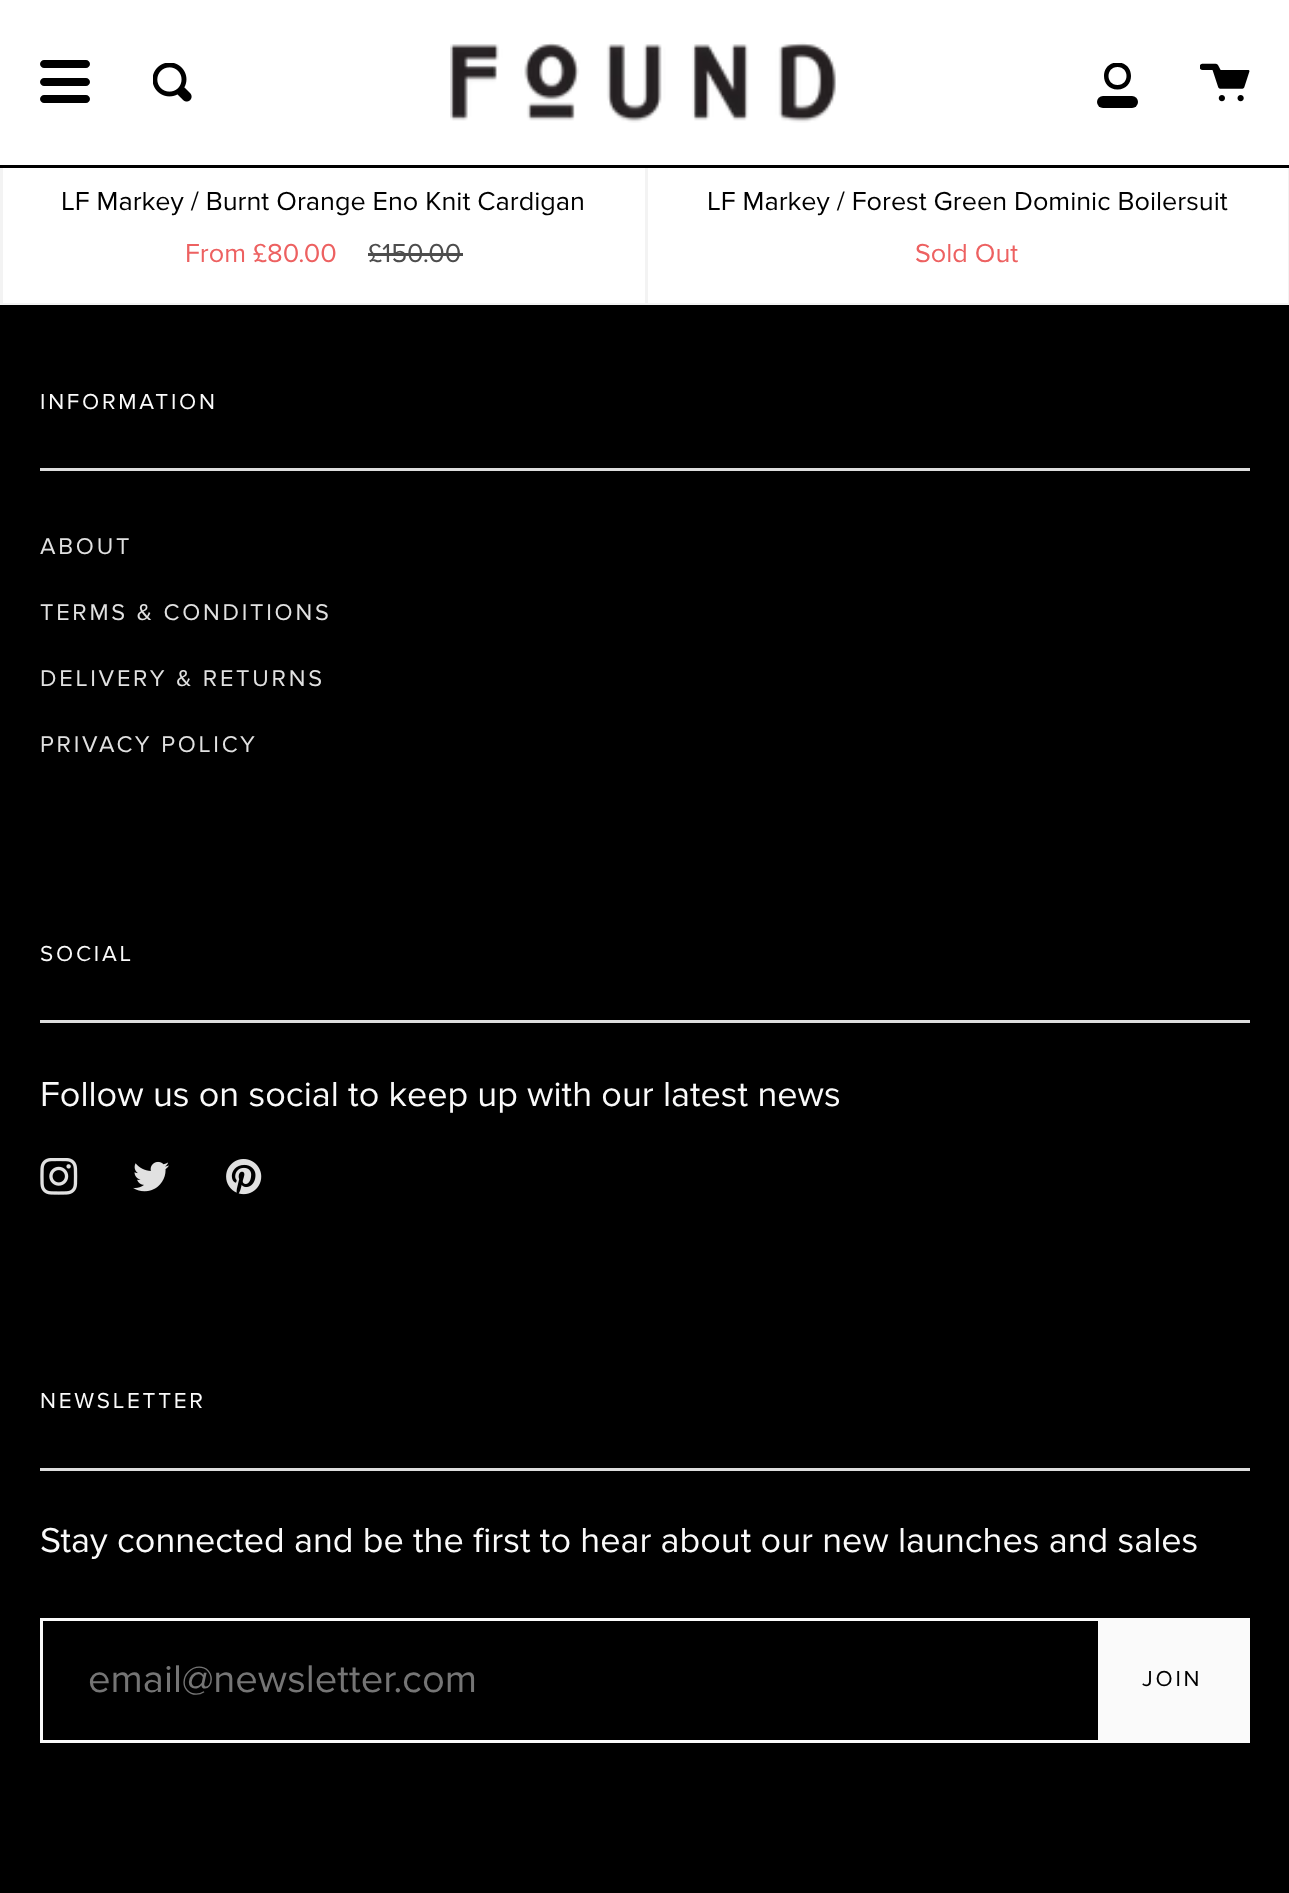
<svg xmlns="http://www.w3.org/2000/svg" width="1289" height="1893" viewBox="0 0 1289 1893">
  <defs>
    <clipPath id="clip1"><rect x="1095" y="63" width="45" height="45"/></clipPath>
  </defs>
  <rect width="100%" height="100%" fill="rgb(255,255,255)"/>
  <rect x="0" y="165" width="1289" height="3" fill="rgb(0,0,0)"/>
  <path d="M44 60H83V68H44C42 68 40 66 40 64C40 62 42 60 44 60Z" fill="rgb(0,0,0)"/>
  <path d="M48 60H86C88 60 90 62 90 64C90 66 88 68 86 68H48Z" fill="rgb(0,0,0)"/>
  <path d="M44 78H83V86H44C42 86 40 84 40 82C40 80 42 78 44 78Z" fill="rgb(0,0,0)"/>
  <path d="M48 78H86C88 78 90 80 90 82C90 84 88 86 86 86H48Z" fill="rgb(0,0,0)"/>
  <path d="M44 95H83V103H44C42 103 40 101 40 99C40 97 42 95 44 95Z" fill="rgb(0,0,0)"/>
  <path d="M48 95H86C88 95 90 97 90 99C90 101 88 103 86 103H48Z" fill="rgb(0,0,0)"/>
  <image x="153" y="63" width="39" height="39" href="pic1.png"/>
  <image x="450" y="42" width="386" height="81" href="pic2.png"/>
  <g clip-path="url(#clip1)">
    <path d="M1117.5 89.5C1099.5 89.5 1099.5 62.5 1117.5 62.5C1135.5 62.5 1135.5 89.5 1117.5 89.5ZM1117.5 85C1129.5 85 1129.5 67 1117.5 67C1105.5 67 1105.5 85 1117.5 85Z" fill="rgb(0,0,0)"/>
  </g>
  <rect x="1097" y="96" width="41" height="12" rx="6" fill="rgb(0,0,0)"/>
  <image x="1200" y="63" width="50" height="39" href="pic3.png"/>
  <rect x="645" y="168" width="3" height="137" fill="rgb(243,243,243)"/>
  <rect x="3" y="303" width="645" height="2" fill="rgb(243,243,243)"/>
  <rect x="0" y="168" width="3" height="137" fill="rgb(243,243,243)"/>
  <text x="61" y="210" font-family="Proxima Nova" font-size="27" fill="rgb(0,0,0)">LF Markey / Burnt Orange Eno Knit Cardigan</text>
  <text x="185" y="262" font-family="Proxima Nova" font-size="27" fill="rgb(237,97,97)">From £80.00</text>
  <text x="368" y="262" font-family="Proxima Nova" font-size="27" fill="rgb(77,77,77)">£150.00</text>
  <rect x="368" y="253" width="95" height="3" fill="rgb(77,77,77)"/>
  <rect x="1288" y="168" width="1" height="137" fill="rgb(243,243,243)"/>
  <rect x="648" y="303" width="641" height="2" fill="rgb(243,243,243)"/>
  <text x="707" y="210" font-family="Proxima Nova" font-size="27" fill="rgb(0,0,0)">LF Markey / Forest Green Dominic Boilersuit</text>
  <text x="915" y="262" font-family="Proxima Nova" font-size="27" fill="rgb(237,97,97)">Sold Out</text>
  <rect x="0" y="305" width="1289" height="1588" fill="rgb(0,0,0)"/>
  <text x="40" y="409" font-family="Proxima Nova" font-size="22.5" letter-spacing="2.75" fill="rgb(250,250,250)">INFORMATION</text>
  <rect x="40" y="468" width="1210" height="3" fill="rgb(221,221,221)"/>
  <g font-family="Proxima Nova" font-size="23.6" letter-spacing="2.75" fill="rgb(225,225,225)">
    <text x="40" y="554">ABOUT</text>
    <text x="40" y="620">TERMS &amp; CONDITIONS</text>
    <text x="40" y="686">DELIVERY &amp; RETURNS</text>
    <text x="40" y="752">PRIVACY POLICY</text>
  </g>
  <text x="40" y="961" font-family="Proxima Nova" font-size="22.5" letter-spacing="2.75" fill="rgb(250,250,250)">SOCIAL</text>
  <rect x="40" y="1020" width="1210" height="3" fill="rgb(221,221,221)"/>
  <text x="40" y="1106" font-family="Proxima Nova" font-size="36" fill="rgb(250,250,250)">Follow us on social to keep up with our latest news</text>
  <image x="40" y="1158" width="38" height="37" href="pic4.png"/>
  <image x="133" y="1161" width="36" height="31" href="pic5.png"/>
  <image x="226" y="1159" width="36" height="36" href="pic6.png"/>
  <text x="40" y="1408" font-family="Proxima Nova" font-size="22.5" letter-spacing="2.75" fill="rgb(250,250,250)">NEWSLETTER</text>
  <rect x="40" y="1468" width="1210" height="3" fill="rgb(221,221,221)"/>
  <text x="40" y="1552" font-family="Proxima Nova" font-size="36" fill="rgb(250,250,250)">Stay connected and be the first to hear about our new launches and sales</text>
  <rect x="41.5" y="1619.5" width="1207" height="122" fill="none" stroke="rgb(250,250,250)" stroke-width="3"/>
  <text x="88" y="1692" font-family="Proxima Nova" font-size="40" fill="rgb(117,117,117)">email@newsletter.com</text>
  <rect x="1098" y="1621" width="149" height="119" fill="rgb(250,250,250)"/>
  <text x="1142" y="1686" font-family="Proxima Nova" font-size="22.5" letter-spacing="2.75" fill="rgb(0,0,0)">JOIN</text>
</svg>
